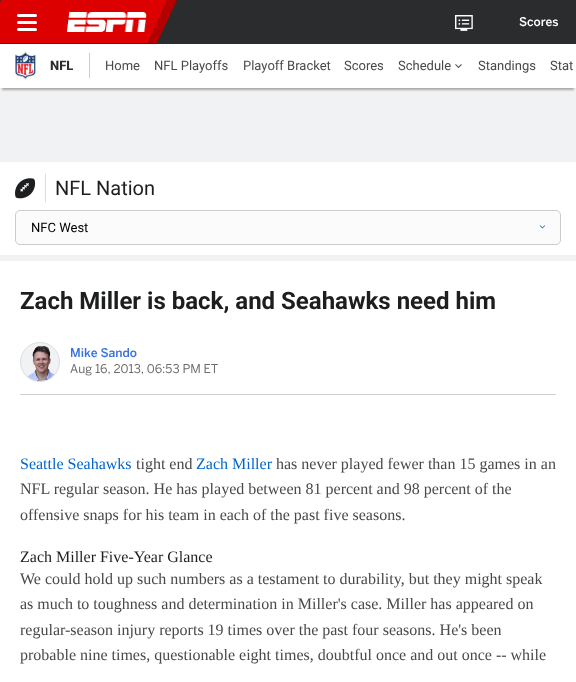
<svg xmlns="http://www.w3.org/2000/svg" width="576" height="682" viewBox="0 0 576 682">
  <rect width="100%" height="100%" fill="rgb(255,255,255)"/>
  <rect x="0" y="0" width="576" height="44" fill="rgb(43,44,45)"/>
  <path d="M54 0H177L157 43H34Z" fill="rgb(180,0,0)"/>
  <path d="M1 0H167L147 43H-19Z" fill="rgb(221,0,0)"/>
  <image x="67" y="12" width="80" height="20" href="pic1.png"/>
  <rect x="17" y="21" width="20" height="3" rx="1.5" fill="rgb(255,255,255)"/>
  <rect x="17" y="14" width="20" height="3" rx="1.5" fill="rgb(255,255,255)"/>
  <rect x="17" y="28" width="20" height="3" rx="1.5" fill="rgb(255,255,255)"/>
  <image x="455" y="15" width="18" height="16" href="pic2.png"/>
  <text x="519" y="26" font-family="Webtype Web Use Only" font-size="12" font-weight="500" fill="rgb(255,255,255)">Scores</text>
  <rect x="0" y="88" width="576" height="173" fill="rgb(241,242,243)"/>
  <rect x="2" y="50" width="572" height="40" fill="rgba(0,0,0,0.3)" filter="blur(1px)"/>
  <rect x="0" y="44" width="576" height="44" rx="1" fill="rgb(255,255,255)"/>
  <image x="14" y="51" width="22" height="29" href="pic3.png"/>
  <text x="50" y="70" font-family="Roboto" font-size="13" font-weight="800" fill="rgb(43,44,45)">NFL</text>
  <rect x="89" y="53" width="1" height="25" fill="rgb(203,204,206)"/>
  <g font-family="Roboto" font-size="13" fill="rgb(72,73,74)">
    <text x="105" y="70">Home</text>
    <text x="154" y="70">NFL Playoffs</text>
    <text x="243" y="70">Playoff Bracket</text>
    <text x="344" y="70">Scores</text>
    <text x="398" y="70">Schedule</text>
  </g>
  <image x="455" y="64" width="7" height="5" href="pic4.png"/>
  <g font-family="Roboto" font-size="13" fill="rgb(72,73,74)">
    <text x="478" y="70">Standings</text>
    <text x="550" y="70">Stat</text>
  </g>
  <rect x="0" y="162" width="576" height="93" fill="rgb(255,255,255)"/>
  <rect x="45" y="174" width="1" height="28" fill="rgb(220,221,223)"/>
  <image x="15" y="178" width="21" height="21" href="pic5.png"/>
  <text x="55" y="195" font-family="Roboto" font-size="20" fill="rgb(29,30,31)">NFL Nation</text>
  <rect x="15.5" y="210.5" width="545" height="34" rx="4.5" fill="rgb(251,251,251)" stroke="rgb(203,204,206)"/>
  <text x="31" y="232" font-family="Roboto" font-size="13" fill="rgb(0,0,0)">NFC West</text>
  <image x="539" y="225" width="6" height="4" href="pic6.png"/>
  <text x="20" y="309" font-family="Roboto" font-size="24" font-weight="bold" fill="rgb(29,30,31)">Zach Miller is back, and Seahawks need him</text>
  <rect x="20" y="394" width="536" height="1" fill="rgb(206,207,207)"/>
  <circle cx="40" cy="362" r="19.5" fill="rgb(241,242,243)" stroke="rgb(220,221,223)"/>
  <image x="27" y="346" width="28" height="35" href="pic7.png"/>
  <text x="70" y="357" font-family="Webtype Web Use Only" font-size="12" font-weight="500" fill="rgb(55,114,223)">Mike Sando</text>
  <text x="70" y="373" font-family="Webtype Web Use Only" font-size="12" fill="rgb(108,109,111)">Aug 16, 2013, 06:53 PM ET</text>
  <text x="20" y="469" font-family="Liberation Serif" font-size="16" fill="rgb(0,102,204)">Seattle Seahawks</text>
  <text x="136" y="469" font-family="Liberation Serif" font-size="16" fill="rgb(72,73,74)">tight end</text>
  <text x="196" y="469" font-family="Liberation Serif" font-size="16" fill="rgb(0,102,204)">Zach Miller</text>
  <g font-family="Liberation Serif" font-size="16" fill="rgb(72,73,74)">
    <text x="276" y="469">has never played fewer than 15 games in an</text>
    <text>
      <tspan x="20" y="494">NFL regular season. He has played between 81 percent and 98 percent of the</tspan>
      <tspan x="20" y="520">offensive snaps for his team in each of the past five seasons.</tspan>
    </text>
  </g>
  <text x="20" y="562" font-family="Liberation Serif" font-size="16" fill="rgb(29,30,31)">Zach Miller Five-Year Glance</text>
  <g font-family="Liberation Serif" font-size="16" fill="rgb(72,73,74)">
    <text>
      <tspan x="20" y="584">We could hold up such numbers as a testament to durability, but they might speak</tspan>
      <tspan x="20" y="609">as much to toughness and determination in Miller's case. Miller has appeared on</tspan>
      <tspan x="20" y="635">regular-season injury reports 19 times over the past four seasons. He's been</tspan>
      <tspan x="20" y="660">probable nine times, questionable eight times, doubtful once and out once -- while</tspan>
    </text>
  </g>
</svg>
